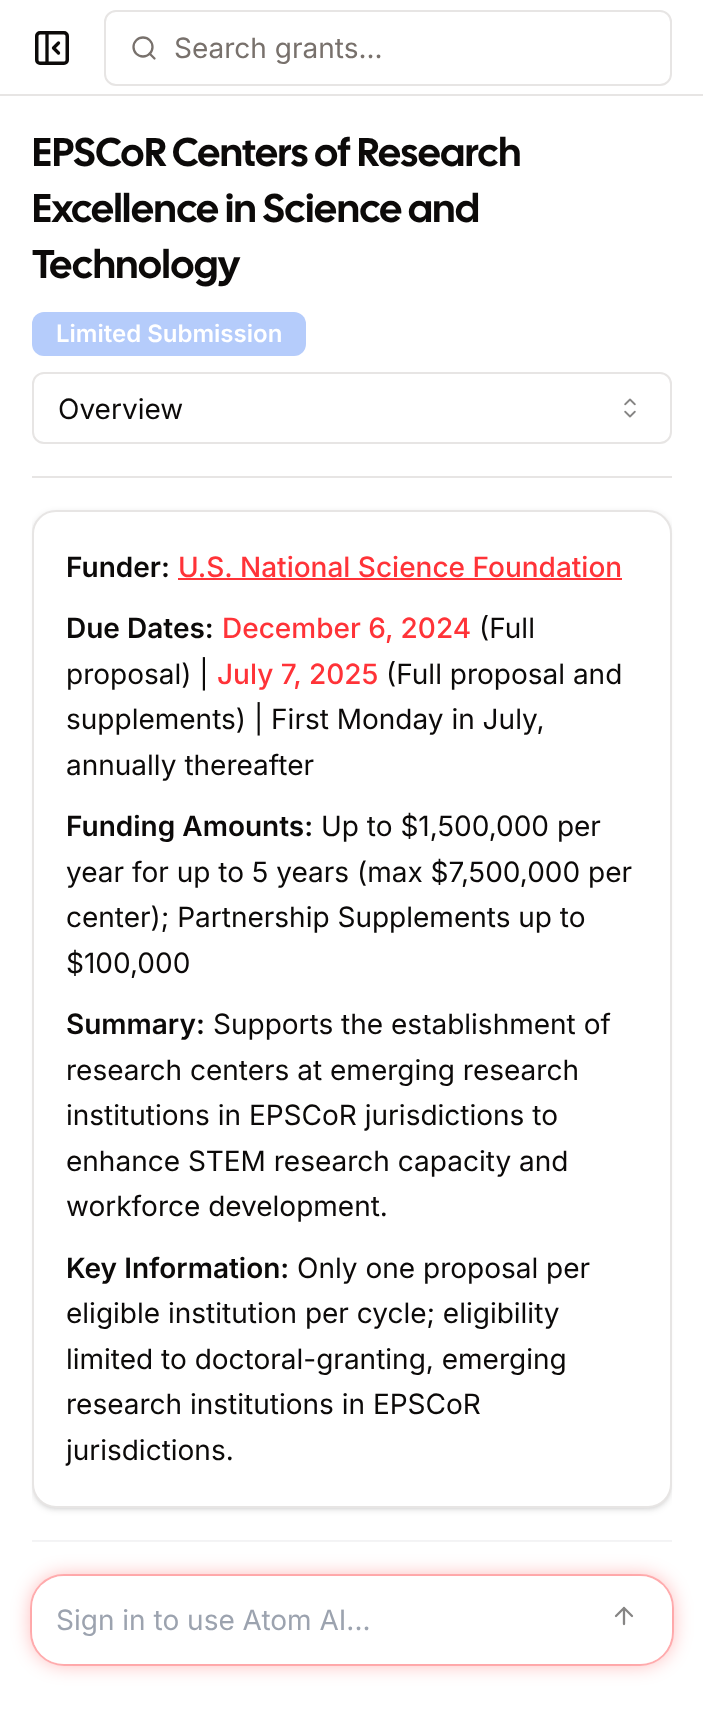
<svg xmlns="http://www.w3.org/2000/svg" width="703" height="1711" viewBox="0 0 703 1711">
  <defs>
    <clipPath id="clip1"><rect x="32" y="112" width="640" height="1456"/></clipPath>
    <linearGradient id="g1" gradientUnits="userSpaceOnUse" x1="352" y1="1528" x2="352" y2="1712"><stop offset="0" stop-color="rgb(255,255,255)" stop-opacity="0"/><stop offset="0.05" stop-color="rgb(255,255,255)" stop-opacity="0.5"/><stop offset="0.1" stop-color="rgb(255,255,255)" stop-opacity="0.7"/><stop offset="0.2" stop-color="rgb(255,255,255)"/></linearGradient>
  </defs>
  <rect width="100%" height="100%" fill="rgb(255,255,255)"/>
  <rect x="0" y="94" width="703" height="2" fill="rgb(231,229,228)"/>
  <rect x="36.75" y="32.75" width="30.5" height="30.5" rx="3.25" fill="none" stroke="rgb(12,10,9)" stroke-width="3.5"/>
  <path d="M47 33V63M58.5 53L53.5 48L58.5 43" fill="none" stroke="rgb(12,10,9)" stroke-width="3.3" stroke-linecap="round" stroke-linejoin="round"/>
  <rect x="105" y="11" width="566" height="74" rx="11" fill="none" stroke="rgb(231,229,228)" stroke-width="2"/>
  <path d="M154.5 58.5L149.5 53.5" fill="none" stroke="rgb(120,113,108)" stroke-width="2.3" stroke-linecap="round" stroke-linejoin="round"/>
  <circle cx="143" cy="47" r="9.5" fill="none" stroke="rgb(120,113,108)" stroke-width="2.3"/>
  <text x="174" y="58" font-family="Inter" font-size="28" fill="rgb(120,113,108)">Search grants...</text>
  <g font-family="Cal Sans" font-size="40" font-weight="600" fill="rgb(12,10,9)">
    <text>
      <tspan x="32" y="166">EPSCoR Centers of Research</tspan>
      <tspan x="32" y="222">Excellence in Science and</tspan>
      <tspan x="32" y="278">Technology</tspan>
    </text>
  </g>
  <rect x="32" y="312" width="274" height="44" rx="12" fill="rgb(181,204,251)"/>
  <text x="56" y="342" font-family="Inter" font-size="24" font-weight="600" fill="rgb(255,255,255)">Limited Submission</text>
  <rect x="32" y="476" width="640" height="2" fill="rgb(231,229,228)"/>
  <rect x="33" y="373" width="638" height="70" rx="11" fill="none" stroke="rgb(231,229,228)" stroke-width="2"/>
  <text x="58" y="419" font-family="Inter" font-size="28" fill="rgb(12,10,9)">Overview</text>
  <image x="624" y="398" width="12" height="20" href="pic1.png"/>
  <rect x="34" y="514" width="636" height="994" rx="22" fill="rgba(0,0,0,0.1)" filter="blur(2px)"/>
  <g clip-path="url(#clip1)">
    <rect x="32" y="512" width="640" height="998" rx="24" fill="rgba(0,0,0,0.1)" filter="blur(3px)"/>
  </g>
  <rect x="33" y="511" width="638" height="996" rx="23" fill="rgb(255,255,255)" stroke="rgb(231,229,228)" stroke-width="2"/>
  <text x="66" y="577" font-family="Inter" font-size="28" font-weight="600" fill="rgb(12,10,9)">Funder:</text>
  <text x="178" y="577" font-family="Inter" font-size="28" font-weight="500" fill="rgb(255,51,56)">U.S. National Science Foundation</text>
  <rect x="178" y="578" width="444" height="2" fill="rgb(255,51,56)"/>
  <text x="66" y="638" font-family="Inter" font-size="28" font-weight="600" fill="rgb(12,10,9)">Due Dates:</text>
  <text x="222" y="638" font-family="Inter" font-size="28" font-weight="500" fill="rgb(255,51,56)">December 6, 2024</text>
  <g font-family="Inter" font-size="28" fill="rgb(12,10,9)">
    <text x="479" y="638">(Full</text>
    <text x="66" y="684">proposal) |</text>
  </g>
  <text x="217" y="684" font-family="Inter" font-size="28" font-weight="500" fill="rgb(255,51,56)">July 7, 2025</text>
  <g font-family="Inter" font-size="28" fill="rgb(12,10,9)">
    <text x="386" y="684">(Full proposal and</text>
    <text>
      <tspan x="66" y="729">supplements) | First Monday in July,</tspan>
      <tspan x="66" y="775">annually thereafter</tspan>
    </text>
  </g>
  <text x="66" y="836" font-family="Inter" font-size="28" font-weight="600" fill="rgb(12,10,9)">Funding Amounts:</text>
  <g font-family="Inter" font-size="28" fill="rgb(12,10,9)">
    <text x="321" y="836">Up to $1,500,000 per</text>
    <text>
      <tspan x="66" y="882">year for up to 5 years (max $7,500,000 per</tspan>
      <tspan x="66" y="927">center); Partnership Supplements up to</tspan>
      <tspan x="66" y="973">$100,000</tspan>
    </text>
  </g>
  <text x="66" y="1034" font-family="Inter" font-size="28" font-weight="600" fill="rgb(12,10,9)">Summary:</text>
  <g font-family="Inter" font-size="28" fill="rgb(12,10,9)">
    <text x="213" y="1034">Supports the establishment of</text>
    <text>
      <tspan x="66" y="1080">research centers at emerging research</tspan>
      <tspan x="66" y="1125">institutions in EPSCoR jurisdictions to</tspan>
      <tspan x="66" y="1171">enhance STEM research capacity and</tspan>
      <tspan x="66" y="1216">workforce development.</tspan>
    </text>
  </g>
  <text x="66" y="1278" font-family="Inter" font-size="28" font-weight="600" fill="rgb(12,10,9)">Key Information:</text>
  <g font-family="Inter" font-size="28" fill="rgb(12,10,9)">
    <text x="297" y="1278">Only one proposal per</text>
    <text>
      <tspan x="66" y="1323">eligible institution per cycle; eligibility</tspan>
      <tspan x="66" y="1369">limited to doctoral-granting, emerging</tspan>
      <tspan x="66" y="1414">research institutions in EPSCoR</tspan>
      <tspan x="66" y="1460">jurisdictions.</tspan>
    </text>
  </g>
  <rect x="32" y="1540" width="640" height="2" fill="rgb(228,228,231)"/>
  <rect x="32" y="1540" width="640" height="2" fill="url(#g1)"/>
  <rect x="32" y="1576" width="640" height="88" rx="32" fill="rgba(255,0,0,0.3)" filter="blur(10px)"/>
  <rect x="31" y="1575" width="642" height="90" rx="33" fill="none" stroke="rgba(255,51,56,0.3)" stroke-width="2"/>
  <rect x="32" y="1576" width="640" height="88" rx="32" fill="rgb(255,255,255)"/>
  <text x="56" y="1630" font-family="Inter" font-size="28" fill="rgb(156,163,175)">Sign in to use Atom AI...</text>
  <path d="M616 1616L624 1608L632 1616M624 1624V1608" fill="none" stroke="rgb(134,133,132)" stroke-width="2.3" stroke-linecap="round" stroke-linejoin="round"/>
</svg>
